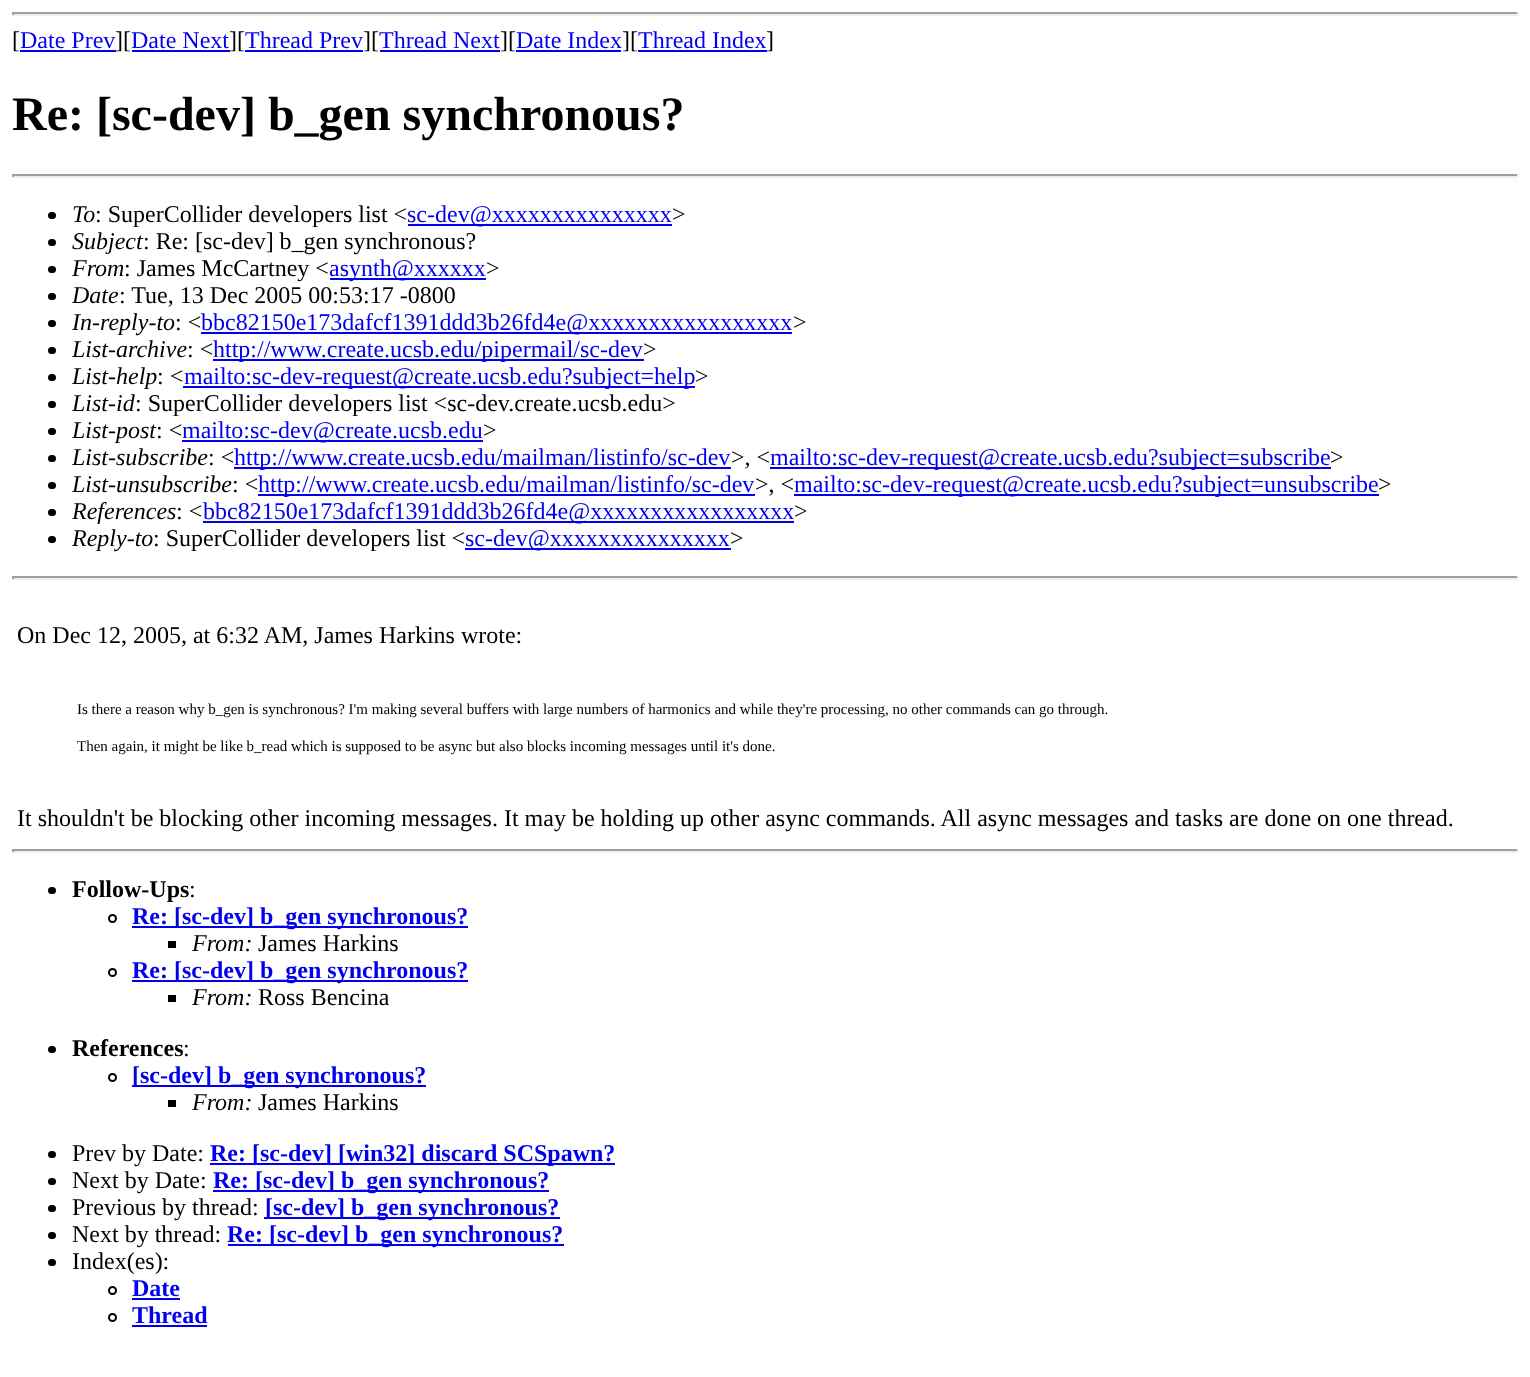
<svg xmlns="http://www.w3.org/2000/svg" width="1530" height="1377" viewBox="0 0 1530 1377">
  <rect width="100%" height="100%" fill="rgb(255,255,255)"/>
  <rect x="12" y="12" width="1506" height="2" fill="rgb(159,159,159)"/>
  <rect x="1517" y="12" width="2" height="3" fill="rgb(238,238,238)"/>
  <rect x="12" y="14" width="1506" height="2" fill="rgb(238,238,238)"/>
  <rect x="12" y="12" width="2" height="3" fill="rgb(159,159,159)"/>
  <text x="12" y="48" font-family="Liberation Serif" font-size="24" fill="rgb(0,0,0)">[</text>
  <text x="20" y="48" font-family="Liberation Serif" font-size="24" fill="rgb(0,0,238)">Date Prev</text>
  <rect x="20" y="50" width="96" height="2" fill="rgb(0,0,238)"/>
  <text x="115" y="48" font-family="Liberation Serif" font-size="24" fill="rgb(0,0,0)">][</text>
  <text x="131" y="48" font-family="Liberation Serif" font-size="24" fill="rgb(0,0,238)">Date Next</text>
  <rect x="132" y="50" width="98" height="2" fill="rgb(0,0,238)"/>
  <text x="229" y="48" font-family="Liberation Serif" font-size="24" fill="rgb(0,0,0)">][</text>
  <text x="245" y="48" font-family="Liberation Serif" font-size="24" fill="rgb(0,0,238)">Thread Prev</text>
  <rect x="245" y="50" width="118" height="2" fill="rgb(0,0,238)"/>
  <text x="363" y="48" font-family="Liberation Serif" font-size="24" fill="rgb(0,0,0)">][</text>
  <text x="379" y="48" font-family="Liberation Serif" font-size="24" fill="rgb(0,0,238)">Thread Next</text>
  <rect x="380" y="50" width="120" height="2" fill="rgb(0,0,238)"/>
  <text x="500" y="48" font-family="Liberation Serif" font-size="24" fill="rgb(0,0,0)">][</text>
  <text x="516" y="48" font-family="Liberation Serif" font-size="24" fill="rgb(0,0,238)">Date Index</text>
  <rect x="516" y="50" width="105" height="2" fill="rgb(0,0,238)"/>
  <text x="622" y="48" font-family="Liberation Serif" font-size="24" fill="rgb(0,0,0)">][</text>
  <text x="638" y="48" font-family="Liberation Serif" font-size="24" fill="rgb(0,0,238)">Thread Index</text>
  <rect x="638" y="50" width="129" height="2" fill="rgb(0,0,238)"/>
  <text x="766" y="48" font-family="Liberation Serif" font-size="24" fill="rgb(0,0,0)">]</text>
  <text x="12" y="130" font-family="Liberation Serif" font-size="48" font-weight="bold" fill="rgb(0,0,0)">Re: [sc-dev] b_gen synchronous?</text>
  <rect x="12" y="174" width="1506" height="2" fill="rgb(159,159,159)"/>
  <rect x="1517" y="174" width="2" height="3" fill="rgb(238,238,238)"/>
  <rect x="12" y="176" width="1506" height="2" fill="rgb(238,238,238)"/>
  <rect x="12" y="174" width="2" height="3" fill="rgb(159,159,159)"/>
  <rect x="48" y="212" width="8" height="7" rx="3.5" fill="rgb(0,0,0)"/>
  <text x="72" y="222" font-family="Liberation Serif" font-size="24" font-style="italic" fill="rgb(0,0,0)">To</text>
  <text x="95" y="222" font-family="Liberation Serif" font-size="24" fill="rgb(0,0,0)">: SuperCollider developers list &lt;</text>
  <rect x="408" y="224" width="264" height="2" fill="rgb(0,0,238)"/>
  <text x="407" y="222" font-family="Liberation Serif" font-size="24" fill="rgb(0,0,238)">sc-dev@xxxxxxxxxxxxxxx</text>
  <text x="672" y="222" font-family="Liberation Serif" font-size="24" fill="rgb(0,0,0)">&gt;</text>
  <rect x="48" y="239" width="8" height="7" rx="3.5" fill="rgb(0,0,0)"/>
  <text x="72" y="249" font-family="Liberation Serif" font-size="24" font-style="italic" fill="rgb(0,0,0)">Subject</text>
  <text x="143" y="249" font-family="Liberation Serif" font-size="24" fill="rgb(0,0,0)">: Re: [sc-dev] b_gen synchronous?</text>
  <rect x="48" y="266" width="8" height="7" rx="3.5" fill="rgb(0,0,0)"/>
  <text x="72" y="276" font-family="Liberation Serif" font-size="24" font-style="italic" fill="rgb(0,0,0)">From</text>
  <text x="124" y="276" font-family="Liberation Serif" font-size="24" fill="rgb(0,0,0)">: James McCartney &lt;</text>
  <rect x="330" y="278" width="156" height="2" fill="rgb(0,0,238)"/>
  <text x="329" y="276" font-family="Liberation Serif" font-size="24" fill="rgb(0,0,238)">asynth@xxxxxx</text>
  <text x="486" y="276" font-family="Liberation Serif" font-size="24" fill="rgb(0,0,0)">&gt;</text>
  <rect x="48" y="293" width="8" height="7" rx="3.5" fill="rgb(0,0,0)"/>
  <text x="72" y="303" font-family="Liberation Serif" font-size="24" font-style="italic" fill="rgb(0,0,0)">Date</text>
  <text x="119" y="303" font-family="Liberation Serif" font-size="24" fill="rgb(0,0,0)">: Tue, 13 Dec 2005 00:53:17 -0800</text>
  <rect x="48" y="320" width="8" height="7" rx="3.5" fill="rgb(0,0,0)"/>
  <text x="72" y="330" font-family="Liberation Serif" font-size="24" font-style="italic" fill="rgb(0,0,0)">In-reply-to</text>
  <text x="175" y="330" font-family="Liberation Serif" font-size="24" fill="rgb(0,0,0)">: &lt;</text>
  <rect x="201" y="332" width="591" height="2" fill="rgb(0,0,238)"/>
  <text x="201" y="330" font-family="Liberation Serif" font-size="24" fill="rgb(0,0,238)">bbc82150e173dafcf1391ddd3b26fd4e@xxxxxxxxxxxxxxxxx</text>
  <text x="793" y="330" font-family="Liberation Serif" font-size="24" fill="rgb(0,0,0)">&gt;</text>
  <rect x="48" y="347" width="8" height="7" rx="3.5" fill="rgb(0,0,0)"/>
  <text x="72" y="357" font-family="Liberation Serif" font-size="24" font-style="italic" fill="rgb(0,0,0)">List-archive</text>
  <text x="187" y="357" font-family="Liberation Serif" font-size="24" fill="rgb(0,0,0)">: &lt;</text>
  <rect x="213" y="359" width="431" height="2" fill="rgb(0,0,238)"/>
  <text x="213" y="357" font-family="Liberation Serif" font-size="24" fill="rgb(0,0,238)">http://www.create.ucsb.edu/pipermail/sc-dev</text>
  <text x="643" y="357" font-family="Liberation Serif" font-size="24" fill="rgb(0,0,0)">&gt;</text>
  <rect x="48" y="374" width="8" height="7" rx="3.5" fill="rgb(0,0,0)"/>
  <text x="72" y="384" font-family="Liberation Serif" font-size="24" font-style="italic" fill="rgb(0,0,0)">List-help</text>
  <text x="157" y="384" font-family="Liberation Serif" font-size="24" fill="rgb(0,0,0)">: &lt;</text>
  <rect x="183" y="386" width="512" height="2" fill="rgb(0,0,238)"/>
  <text x="184" y="384" font-family="Liberation Serif" font-size="24" fill="rgb(0,0,238)">mailto:sc-dev-request@create.ucsb.edu?subject=help</text>
  <text x="695" y="384" font-family="Liberation Serif" font-size="24" fill="rgb(0,0,0)">&gt;</text>
  <rect x="48" y="401" width="8" height="7" rx="3.5" fill="rgb(0,0,0)"/>
  <text x="72" y="411" font-family="Liberation Serif" font-size="24" font-style="italic" fill="rgb(0,0,0)">List-id</text>
  <text x="135" y="411" font-family="Liberation Serif" font-size="24" fill="rgb(0,0,0)">: SuperCollider developers list &lt;sc-dev.create.ucsb.edu&gt;</text>
  <rect x="48" y="428" width="8" height="7" rx="3.5" fill="rgb(0,0,0)"/>
  <text x="72" y="438" font-family="Liberation Serif" font-size="24" font-style="italic" fill="rgb(0,0,0)">List-post</text>
  <text x="156" y="438" font-family="Liberation Serif" font-size="24" fill="rgb(0,0,0)">: &lt;</text>
  <rect x="182" y="440" width="301" height="2" fill="rgb(0,0,238)"/>
  <text x="182" y="438" font-family="Liberation Serif" font-size="24" fill="rgb(0,0,238)">mailto:sc-dev@create.ucsb.edu</text>
  <text x="483" y="438" font-family="Liberation Serif" font-size="24" fill="rgb(0,0,0)">&gt;</text>
  <rect x="48" y="455" width="8" height="7" rx="3.5" fill="rgb(0,0,0)"/>
  <text x="72" y="465" font-family="Liberation Serif" font-size="24" font-style="italic" fill="rgb(0,0,0)">List-subscribe</text>
  <text x="208" y="465" font-family="Liberation Serif" font-size="24" fill="rgb(0,0,0)">: &lt;</text>
  <rect x="234" y="467" width="497" height="2" fill="rgb(0,0,238)"/>
  <text x="234" y="465" font-family="Liberation Serif" font-size="24" fill="rgb(0,0,238)">http://www.create.ucsb.edu/mailman/listinfo/sc-dev</text>
  <text x="731" y="465" font-family="Liberation Serif" font-size="24" fill="rgb(0,0,0)">&gt;, &lt;</text>
  <rect x="770" y="467" width="561" height="2" fill="rgb(0,0,238)"/>
  <text x="770" y="465" font-family="Liberation Serif" font-size="24" fill="rgb(0,0,238)">mailto:sc-dev-request@create.ucsb.edu?subject=subscribe</text>
  <text x="1330" y="465" font-family="Liberation Serif" font-size="24" fill="rgb(0,0,0)">&gt;</text>
  <rect x="48" y="482" width="8" height="7" rx="3.5" fill="rgb(0,0,0)"/>
  <text x="72" y="492" font-family="Liberation Serif" font-size="24" font-style="italic" fill="rgb(0,0,0)">List-unsubscribe</text>
  <text x="232" y="492" font-family="Liberation Serif" font-size="24" fill="rgb(0,0,0)">: &lt;</text>
  <rect x="258" y="494" width="497" height="2" fill="rgb(0,0,238)"/>
  <text x="258" y="492" font-family="Liberation Serif" font-size="24" fill="rgb(0,0,238)">http://www.create.ucsb.edu/mailman/listinfo/sc-dev</text>
  <text x="755" y="492" font-family="Liberation Serif" font-size="24" fill="rgb(0,0,0)">&gt;, &lt;</text>
  <rect x="794" y="494" width="585" height="2" fill="rgb(0,0,238)"/>
  <text x="794" y="492" font-family="Liberation Serif" font-size="24" fill="rgb(0,0,238)">mailto:sc-dev-request@create.ucsb.edu?subject=unsubscribe</text>
  <text x="1378" y="492" font-family="Liberation Serif" font-size="24" fill="rgb(0,0,0)">&gt;</text>
  <rect x="48" y="509" width="8" height="7" rx="3.5" fill="rgb(0,0,0)"/>
  <text x="72" y="519" font-family="Liberation Serif" font-size="24" font-style="italic" fill="rgb(0,0,0)">References</text>
  <text x="176" y="519" font-family="Liberation Serif" font-size="24" fill="rgb(0,0,0)">: &lt;</text>
  <rect x="203" y="521" width="591" height="2" fill="rgb(0,0,238)"/>
  <text x="203" y="519" font-family="Liberation Serif" font-size="24" fill="rgb(0,0,238)">bbc82150e173dafcf1391ddd3b26fd4e@xxxxxxxxxxxxxxxxx</text>
  <text x="794" y="519" font-family="Liberation Serif" font-size="24" fill="rgb(0,0,0)">&gt;</text>
  <rect x="48" y="536" width="8" height="7" rx="3.5" fill="rgb(0,0,0)"/>
  <text x="72" y="546" font-family="Liberation Serif" font-size="24" font-style="italic" fill="rgb(0,0,0)">Reply-to</text>
  <text x="153" y="546" font-family="Liberation Serif" font-size="24" fill="rgb(0,0,0)">: SuperCollider developers list &lt;</text>
  <rect x="465" y="548" width="266" height="2" fill="rgb(0,0,238)"/>
  <text x="465" y="546" font-family="Liberation Serif" font-size="24" fill="rgb(0,0,238)">sc-dev@xxxxxxxxxxxxxxx</text>
  <text x="730" y="546" font-family="Liberation Serif" font-size="24" fill="rgb(0,0,0)">&gt;</text>
  <rect x="12" y="576" width="1506" height="2" fill="rgb(159,159,159)"/>
  <rect x="1517" y="576" width="2" height="3" fill="rgb(238,238,238)"/>
  <rect x="12" y="578" width="1506" height="2" fill="rgb(238,238,238)"/>
  <rect x="12" y="576" width="2" height="3" fill="rgb(159,159,159)"/>
  <text x="17" y="643" font-family="Liberation Serif" font-size="24" fill="rgb(0,0,0)">On Dec 12, 2005, at 6:32 AM, James Harkins wrote:</text>
  <g font-family="Liberation Serif" font-size="15" fill="rgb(0,0,0)">
    <text x="77" y="714">Is there a reason why b_gen is synchronous? I'm making several buffers with large numbers of harmonics and while they're processing, no other commands can go through.</text>
    <text x="77" y="751">Then again, it might be like b_read which is supposed to be async but also blocks incoming messages until it's done.</text>
  </g>
  <text x="17" y="826" font-family="Liberation Serif" font-size="24" fill="rgb(0,0,0)">It shouldn't be blocking other incoming messages. It may be holding up other async commands. All async messages and tasks are done on one thread.</text>
  <rect x="12" y="849" width="1506" height="2" fill="rgb(159,159,159)"/>
  <rect x="1517" y="849" width="2" height="3" fill="rgb(238,238,238)"/>
  <rect x="12" y="851" width="1506" height="2" fill="rgb(238,238,238)"/>
  <rect x="12" y="849" width="2" height="3" fill="rgb(159,159,159)"/>
  <rect x="48" y="887" width="8" height="7" rx="3.5" fill="rgb(0,0,0)"/>
  <text x="72" y="897" font-family="Liberation Serif" font-size="24" font-weight="bold" fill="rgb(0,0,0)">Follow-Ups</text>
  <text x="189" y="897" font-family="Liberation Serif" font-size="24" fill="rgb(0,0,0)">:</text>
  <circle cx="112.5" cy="918.5" r="3.5" fill="none" stroke="rgb(0,0,0)" stroke-width="2"/>
  <rect x="132" y="926" width="336" height="2" fill="rgb(0,0,238)"/>
  <text x="132" y="924" font-family="Liberation Serif" font-size="24" font-weight="bold" fill="rgb(0,0,238)">Re: [sc-dev] b_gen synchronous?</text>
  <rect x="168" y="941" width="8" height="7" fill="rgb(0,0,0)"/>
  <text x="192" y="951" font-family="Liberation Serif" font-size="24" font-style="italic" fill="rgb(0,0,0)">From:</text>
  <text x="258" y="951" font-family="Liberation Serif" font-size="24" fill="rgb(0,0,0)">James Harkins</text>
  <circle cx="112.5" cy="972.5" r="3.5" fill="none" stroke="rgb(0,0,0)" stroke-width="2"/>
  <rect x="132" y="980" width="336" height="2" fill="rgb(0,0,238)"/>
  <text x="132" y="978" font-family="Liberation Serif" font-size="24" font-weight="bold" fill="rgb(0,0,238)">Re: [sc-dev] b_gen synchronous?</text>
  <rect x="168" y="995" width="8" height="7" fill="rgb(0,0,0)"/>
  <text x="192" y="1005" font-family="Liberation Serif" font-size="24" font-style="italic" fill="rgb(0,0,0)">From:</text>
  <text x="258" y="1005" font-family="Liberation Serif" font-size="24" fill="rgb(0,0,0)">Ross Bencina</text>
  <rect x="48" y="1046" width="8" height="7" rx="3.5" fill="rgb(0,0,0)"/>
  <text x="72" y="1056" font-family="Liberation Serif" font-size="24" font-weight="bold" fill="rgb(0,0,0)">References</text>
  <text x="183" y="1056" font-family="Liberation Serif" font-size="24" fill="rgb(0,0,0)">:</text>
  <circle cx="112.5" cy="1077.5" r="3.5" fill="none" stroke="rgb(0,0,0)" stroke-width="2"/>
  <rect x="132" y="1085" width="294" height="2" fill="rgb(0,0,238)"/>
  <text x="132" y="1083" font-family="Liberation Serif" font-size="24" font-weight="bold" fill="rgb(0,0,238)">[sc-dev] b_gen synchronous?</text>
  <rect x="168" y="1100" width="8" height="7" fill="rgb(0,0,0)"/>
  <text x="192" y="1110" font-family="Liberation Serif" font-size="24" font-style="italic" fill="rgb(0,0,0)">From:</text>
  <text x="258" y="1110" font-family="Liberation Serif" font-size="24" fill="rgb(0,0,0)">James Harkins</text>
  <rect x="48" y="1151" width="8" height="7" rx="3.5" fill="rgb(0,0,0)"/>
  <text x="72" y="1161" font-family="Liberation Serif" font-size="24" fill="rgb(0,0,0)">Prev by Date:</text>
  <rect x="210" y="1163" width="405" height="2" fill="rgb(0,0,238)"/>
  <text x="210" y="1161" font-family="Liberation Serif" font-size="24" font-weight="bold" fill="rgb(0,0,238)">Re: [sc-dev] [win32] discard SCSpawn?</text>
  <rect x="48" y="1178" width="8" height="7" rx="3.5" fill="rgb(0,0,0)"/>
  <text x="72" y="1188" font-family="Liberation Serif" font-size="24" fill="rgb(0,0,0)">Next by Date:</text>
  <rect x="213" y="1190" width="336" height="2" fill="rgb(0,0,238)"/>
  <text x="213" y="1188" font-family="Liberation Serif" font-size="24" font-weight="bold" fill="rgb(0,0,238)">Re: [sc-dev] b_gen synchronous?</text>
  <rect x="48" y="1205" width="8" height="7" rx="3.5" fill="rgb(0,0,0)"/>
  <text x="72" y="1215" font-family="Liberation Serif" font-size="24" fill="rgb(0,0,0)">Previous by thread:</text>
  <rect x="264" y="1217" width="296" height="2" fill="rgb(0,0,238)"/>
  <text x="265" y="1215" font-family="Liberation Serif" font-size="24" font-weight="bold" fill="rgb(0,0,238)">[sc-dev] b_gen synchronous?</text>
  <rect x="48" y="1232" width="8" height="7" rx="3.5" fill="rgb(0,0,0)"/>
  <text x="72" y="1242" font-family="Liberation Serif" font-size="24" fill="rgb(0,0,0)">Next by thread:</text>
  <rect x="228" y="1244" width="336" height="2" fill="rgb(0,0,238)"/>
  <text x="227" y="1242" font-family="Liberation Serif" font-size="24" font-weight="bold" fill="rgb(0,0,238)">Re: [sc-dev] b_gen synchronous?</text>
  <rect x="48" y="1259" width="8" height="7" rx="3.5" fill="rgb(0,0,0)"/>
  <text x="72" y="1269" font-family="Liberation Serif" font-size="24" fill="rgb(0,0,0)">Index(es):</text>
  <circle cx="112.5" cy="1290.5" r="3.5" fill="none" stroke="rgb(0,0,0)" stroke-width="2"/>
  <text x="132" y="1296" font-family="Liberation Serif" font-size="24" font-weight="bold" fill="rgb(0,0,238)">Date</text>
  <rect x="132" y="1298" width="48" height="2" fill="rgb(0,0,238)"/>
  <circle cx="112.5" cy="1317.5" r="3.5" fill="none" stroke="rgb(0,0,0)" stroke-width="2"/>
  <text x="132" y="1323" font-family="Liberation Serif" font-size="24" font-weight="bold" fill="rgb(0,0,238)">Thread</text>
  <rect x="132" y="1325" width="75" height="2" fill="rgb(0,0,238)"/>
</svg>
